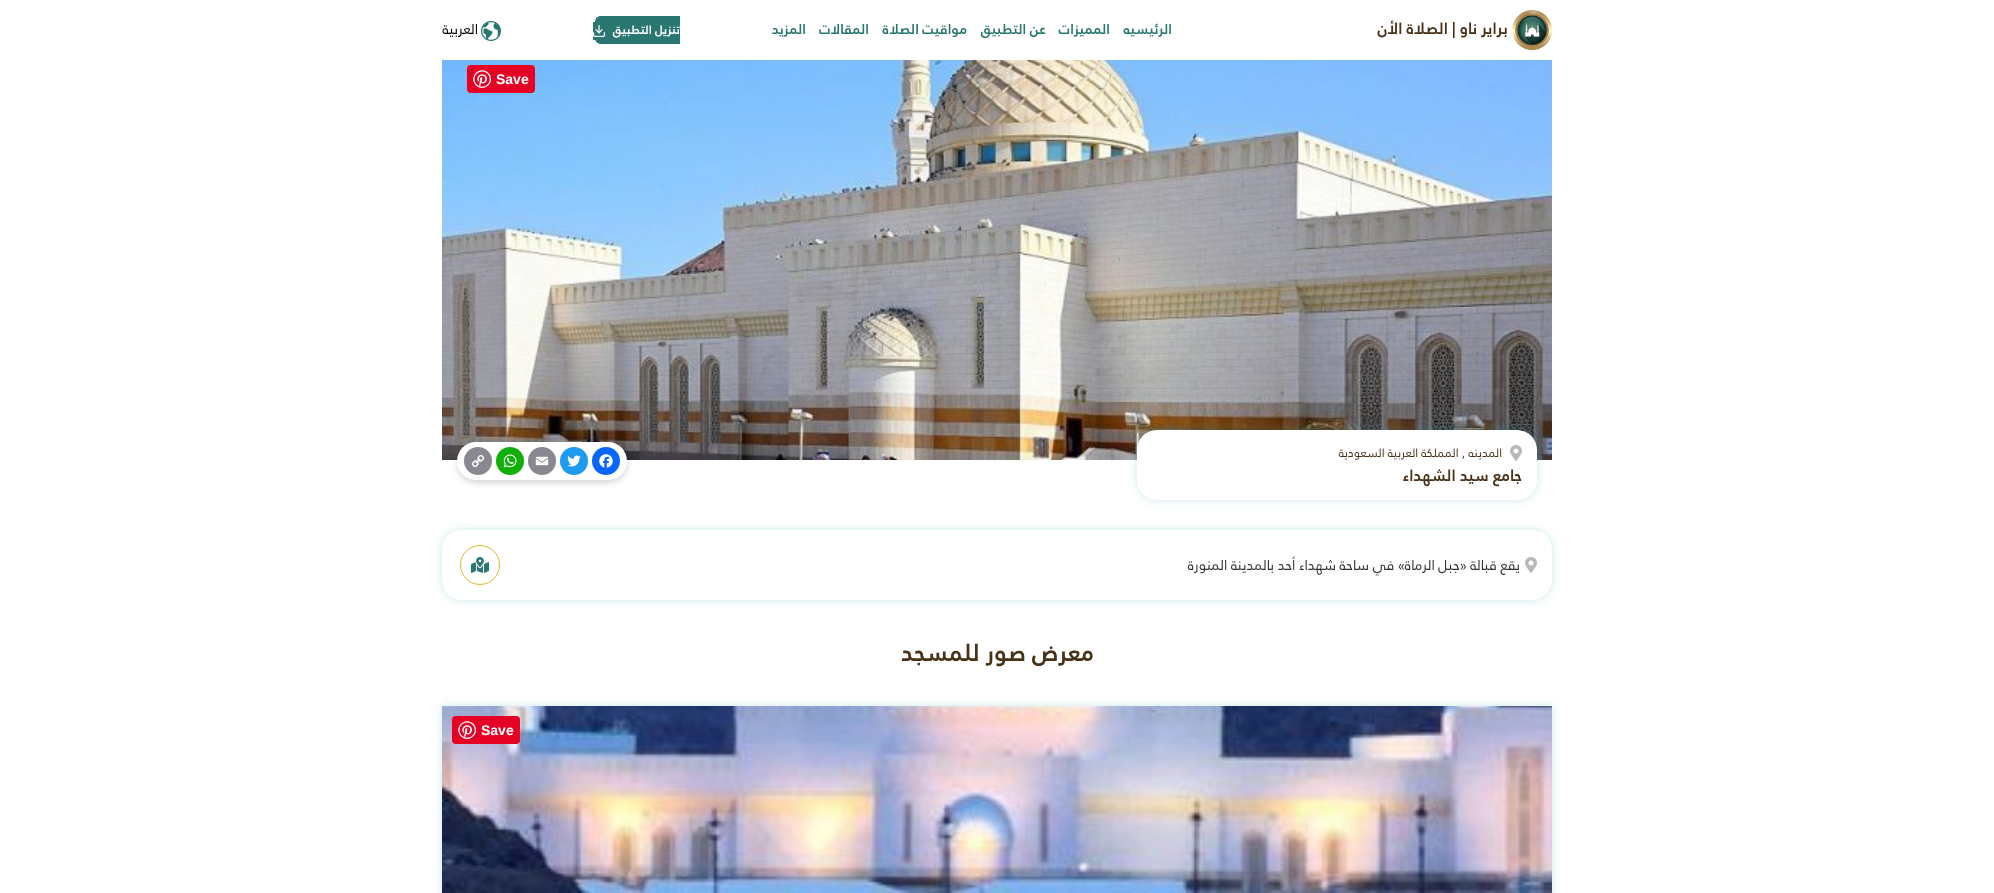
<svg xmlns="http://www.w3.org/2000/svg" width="1994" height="893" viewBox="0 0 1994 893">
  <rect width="100%" height="100%" fill="rgb(255,255,255)"/>
  <image x="1512" y="10" width="40" height="40" href="pic1.png"/>
  <text x="1508" y="34" font-family="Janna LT" font-size="16" font-weight="bold" direction="rtl" fill="rgb(72,51,24)">براير ناو | الصلاة الأن</text>
  <g font-family="Janna LT" font-size="14" font-weight="bold" direction="rtl" fill="rgb(41,119,112)">
    <text x="1172" y="34">الرئيسيه</text>
    <text x="1110" y="34">المميزات</text>
    <text x="1046" y="34">عن التطبيق</text>
    <text x="967" y="34">مواقيت الصلاة</text>
    <text x="869" y="34">المقالات</text>
    <text x="806" y="34">المزيد</text>
  </g>
  <path d="M601 16H680V44H601C597.5 44 595 41.5 595 38V22C595 18.5 597.5 16 601 16Z" fill="rgb(41,119,112)"/>
  <path d="M593 22H614C617.5 22 620 24.5 620 28V34C620 37.5 617.5 40 614 40H593Z" fill="rgb(41,119,112)"/>
  <text x="680" y="34" font-family="Janna LT" font-size="12" font-weight="bold" direction="rtl" fill="rgb(255,255,255)">تنزيل التطبيق</text>
  <image x="593" y="25" width="12" height="12" href="pic2.png"/>
  <image x="481" y="21" width="20" height="20" href="pic3.png"/>
  <text x="478" y="34" font-family="Janna LT" font-size="14" direction="rtl" fill="rgb(0,0,0)">العربية</text>
  <image x="442" y="60" width="1110" height="400" href="pic4.png"/>
  <rect x="467" y="65" width="68" height="28" rx="4" fill="rgb(230,0,35)"/>
  <image x="473" y="70" width="18" height="18" href="pic5.png"/>
  <text x="496" y="84" font-family="Liberation Sans" font-size="14" font-weight="bold" fill="rgb(255,255,255)">Save</text>
  <rect x="457" y="445" width="170" height="38" rx="19" fill="rgba(0,0,0,0.16)" filter="blur(3px)"/>
  <rect x="457" y="442" width="170" height="38" rx="19" fill="rgb(255,255,255)"/>
  <circle cx="606" cy="461" r="14" fill="rgb(8,102,255)"/>
  <image x="599" y="454" width="14" height="14" href="pic6.png"/>
  <circle cx="574" cy="461" r="14" fill="rgb(29,155,240)"/>
  <image x="567" y="455" width="14" height="12" href="pic7.png"/>
  <circle cx="542" cy="461" r="14" fill="rgb(136,137,144)"/>
  <image x="535" y="456" width="14" height="10" href="pic8.png"/>
  <circle cx="510" cy="461" r="14" fill="rgb(18,175,10)"/>
  <image x="503" y="454" width="14" height="14" href="pic9.png"/>
  <circle cx="478" cy="461" r="14" fill="rgb(136,137,144)"/>
  <image x="471" y="454" width="14" height="14" href="pic10.png"/>
  <rect x="1137" y="430" width="400" height="70" rx="20" fill="rgba(44,167,171,0.25)" filter="blur(5px)"/>
  <rect x="1137" y="430" width="400" height="70" rx="20" fill="rgb(255,255,255)"/>
  <image x="1510" y="445" width="12" height="16" href="pic11.png"/>
  <g font-family="Janna LT" font-size="12" direction="rtl" fill="rgb(72,51,24)">
    <text x="1502" y="457">المدينه</text>
    <text x="1465" y="457">, المملكة العربية السعودية</text>
  </g>
  <text x="1522" y="481" font-family="Janna LT" font-size="16" font-weight="bold" direction="rtl" fill="rgb(72,51,24)">جامع سيد الشهداء</text>
  <rect x="442" y="530" width="1110" height="70" rx="20" fill="rgba(44,167,171,0.25)" filter="blur(5px)"/>
  <rect x="442" y="530" width="1110" height="70" rx="20" fill="rgb(255,255,255)"/>
  <image x="1525" y="557" width="12" height="16" href="pic11.png"/>
  <text x="1520" y="570" font-family="Janna LT" font-size="14" direction="rtl" fill="rgb(51,51,51)">يقع قبالة «جبل الرماة» في ساحة شهداء أحد بالمدينة المنورة</text>
  <circle cx="480" cy="565" r="19.5" fill="none" stroke="rgb(223,184,43)"/>
  <image x="471" y="557" width="18" height="16" href="pic12.png"/>
  <text x="1094" y="661" font-family="Janna LT" font-size="24" font-weight="bold" direction="rtl" fill="rgb(72,51,24)">معرض صور للمسجد</text>
  <rect x="442" y="706" width="1110" height="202" fill="rgba(44,167,171,0.25)" filter="blur(5px)"/>
  <image x="442" y="706" width="1110" height="187" href="pic13.png"/>
  <rect x="452" y="716" width="68" height="28" rx="4" fill="rgb(230,0,35)"/>
  <image x="458" y="721" width="18" height="18" href="pic5.png"/>
  <text x="481" y="735" font-family="Liberation Sans" font-size="14" font-weight="bold" fill="rgb(255,255,255)">Save</text>
</svg>
